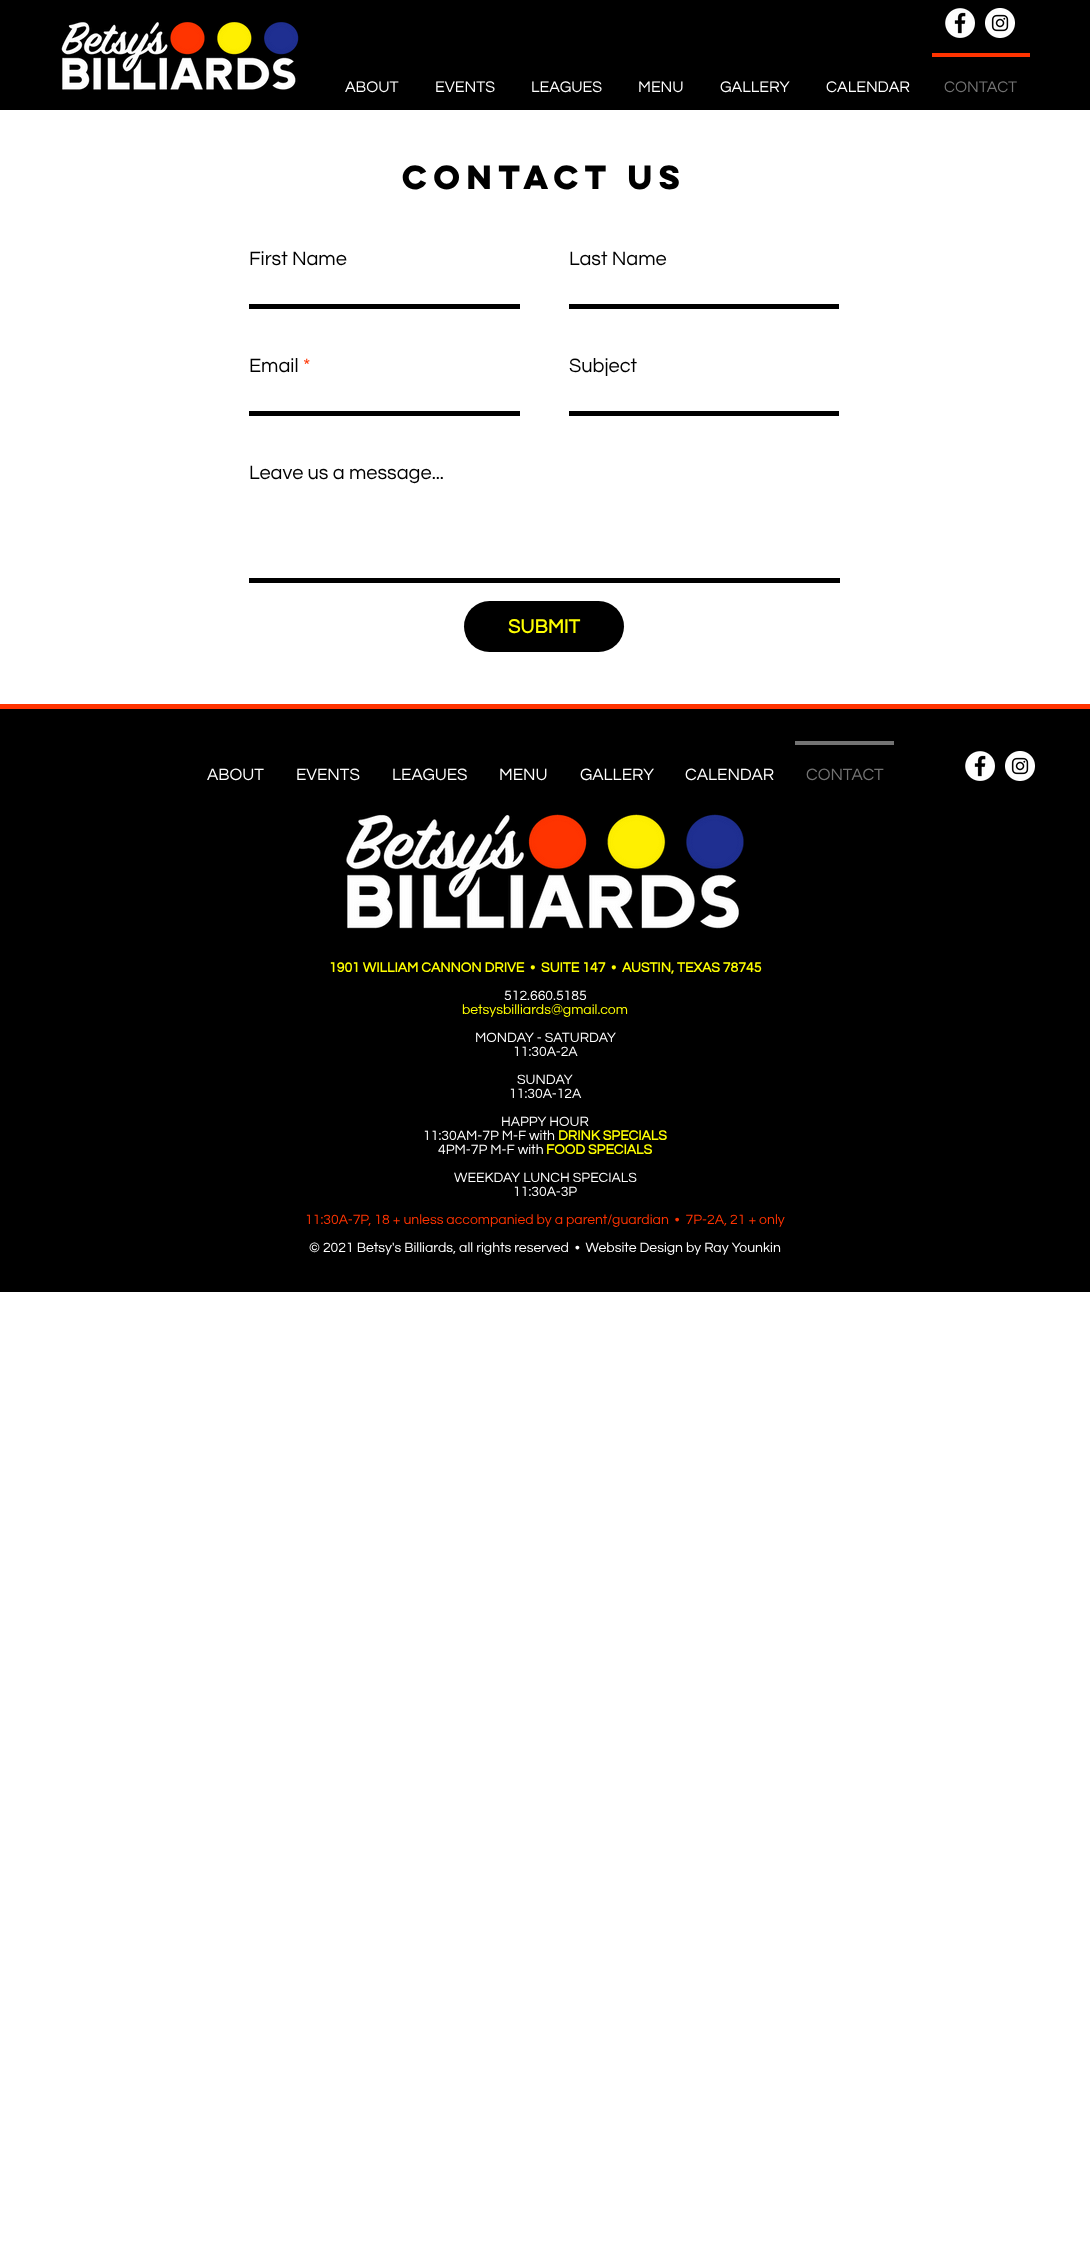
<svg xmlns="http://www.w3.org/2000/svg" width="1090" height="2262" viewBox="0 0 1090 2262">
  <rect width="100%" height="100%" fill="rgb(255,255,255)"/>
  <rect x="0" y="0" width="1090" height="110" fill="rgb(0,0,0)"/>
  <image x="61" y="22" width="238" height="68" href="pic1.png"/>
  <image x="945" y="8" width="30" height="30" href="pic2.png"/>
  <image x="985" y="8" width="30" height="30" href="pic3.png"/>
  <g font-family="Questrial" font-size="16" fill="rgb(255,255,255)">
    <text x="345" y="92">ABOUT</text>
    <text x="435" y="92">EVENTS</text>
    <text x="531" y="92">LEAGUES</text>
    <text x="638" y="92">MENU</text>
    <text x="720" y="92">GALLERY</text>
    <text x="826" y="92">CALENDAR</text>
  </g>
  <rect x="932" y="53" width="98" height="4" fill="rgb(255,51,0)"/>
  <text x="944" y="92" font-family="Questrial" font-size="16" fill="rgb(115,115,115)">CONTACT</text>
  <text x="402" y="189" font-family="'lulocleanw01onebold'" font-size="30" font-weight="bold" fill="rgb(0,0,0)">Contact Us</text>
  <text x="249" y="265" font-family="Questrial" font-size="20" fill="rgb(0,0,0)">First Name</text>
  <rect x="249" y="304" width="271" height="5" fill="rgb(0,0,0)"/>
  <text x="569" y="265" font-family="Questrial" font-size="20" fill="rgb(0,0,0)">Last Name</text>
  <rect x="569" y="304" width="270" height="5" fill="rgb(0,0,0)"/>
  <text x="249" y="372" font-family="Questrial" font-size="20" fill="rgb(0,0,0)">Email</text>
  <text x="303" y="372" font-family="Questrial" font-size="20" fill="rgb(255,51,0)">*</text>
  <rect x="249" y="411" width="271" height="5" fill="rgb(0,0,0)"/>
  <text x="569" y="372" font-family="Questrial" font-size="20" fill="rgb(0,0,0)">Subject</text>
  <rect x="569" y="411" width="270" height="5" fill="rgb(0,0,0)"/>
  <text x="249" y="479" font-family="Questrial" font-size="20" fill="rgb(0,0,0)">Leave us a message...</text>
  <rect x="249" y="578" width="591" height="5" fill="rgb(0,0,0)"/>
  <rect x="464" y="601" width="160" height="51" rx="25.5" fill="rgb(0,0,0)"/>
  <text x="508" y="633" font-family="Questrial" font-size="20" font-weight="bold" fill="rgb(255,255,0)">SUBMIT</text>
  <rect x="0" y="709" width="1090" height="583" fill="rgb(0,0,0)"/>
  <rect x="0" y="704" width="1090" height="5" fill="rgb(255,51,0)"/>
  <g font-family="Questrial" font-size="17" fill="rgb(255,255,255)">
    <text x="207" y="780">ABOUT</text>
    <text x="296" y="780">EVENTS</text>
    <text x="392" y="780">LEAGUES</text>
    <text x="499" y="780">MENU</text>
    <text x="580" y="780">GALLERY</text>
    <text x="685" y="780">CALENDAR</text>
  </g>
  <rect x="795" y="741" width="99" height="4" fill="rgb(115,115,115)"/>
  <text x="806" y="780" font-family="Questrial" font-size="17" fill="rgb(115,115,115)">CONTACT</text>
  <image x="965" y="751" width="30" height="30" href="pic2.png"/>
  <image x="1005" y="751" width="30" height="30" href="pic3.png"/>
  <image x="346" y="814" width="398" height="115" href="pic4.png"/>
  <text x="329" y="972" font-family="Questrial" font-size="14" font-weight="bold" fill="rgb(255,255,0)" xml:space="preserve">1901 WILLIAM CANNON DRIVE  •  SUITE 147  •  AUSTIN, TEXAS 78745</text>
  <text x="504" y="1000" font-family="Questrial" font-size="14" fill="rgb(255,255,255)">512.660.5185</text>
  <text x="462" y="1014" font-family="Questrial" font-size="14" fill="rgb(255,255,0)">betsysbilliards@gmail.com</text>
  <g font-family="Questrial" font-size="14" fill="rgb(255,255,255)">
    <text x="475" y="1042">MONDAY - SATURDAY</text>
    <text x="513" y="1056">11:30A-2A</text>
    <text x="517" y="1084">SUNDAY</text>
    <text x="509" y="1098">11:30A-12A</text>
    <text x="501" y="1126">HAPPY HOUR</text>
    <text x="423" y="1140">11:30AM-7P M-F with</text>
  </g>
  <text x="558" y="1140" font-family="Questrial" font-size="14" font-weight="bold" fill="rgb(255,255,0)">DRINK SPECIALS</text>
  <text x="438" y="1154" font-family="Questrial" font-size="14" fill="rgb(255,255,255)">4PM-7P M-F with</text>
  <text x="546" y="1154" font-family="Questrial" font-size="14" font-weight="bold" fill="rgb(255,255,0)">FOOD SPECIALS</text>
  <g font-family="Questrial" font-size="14" fill="rgb(255,255,255)">
    <text x="454" y="1182">WEEKDAY LUNCH SPECIALS</text>
    <text x="513" y="1196">11:30A-3P</text>
  </g>
  <text x="305" y="1224" font-family="Questrial" font-size="14" fill="rgb(255,51,0)" xml:space="preserve">11:30A-7P, 18 + unless accompanied by a parent/guardian  •  7P-2A, 21 + only</text>
  <text x="309" y="1252" font-family="Questrial" font-size="14" fill="rgb(255,255,255)" xml:space="preserve">© 2021 Betsy's Billiards, all rights reserved  •  Website Design by Ray Younkin</text>
</svg>
